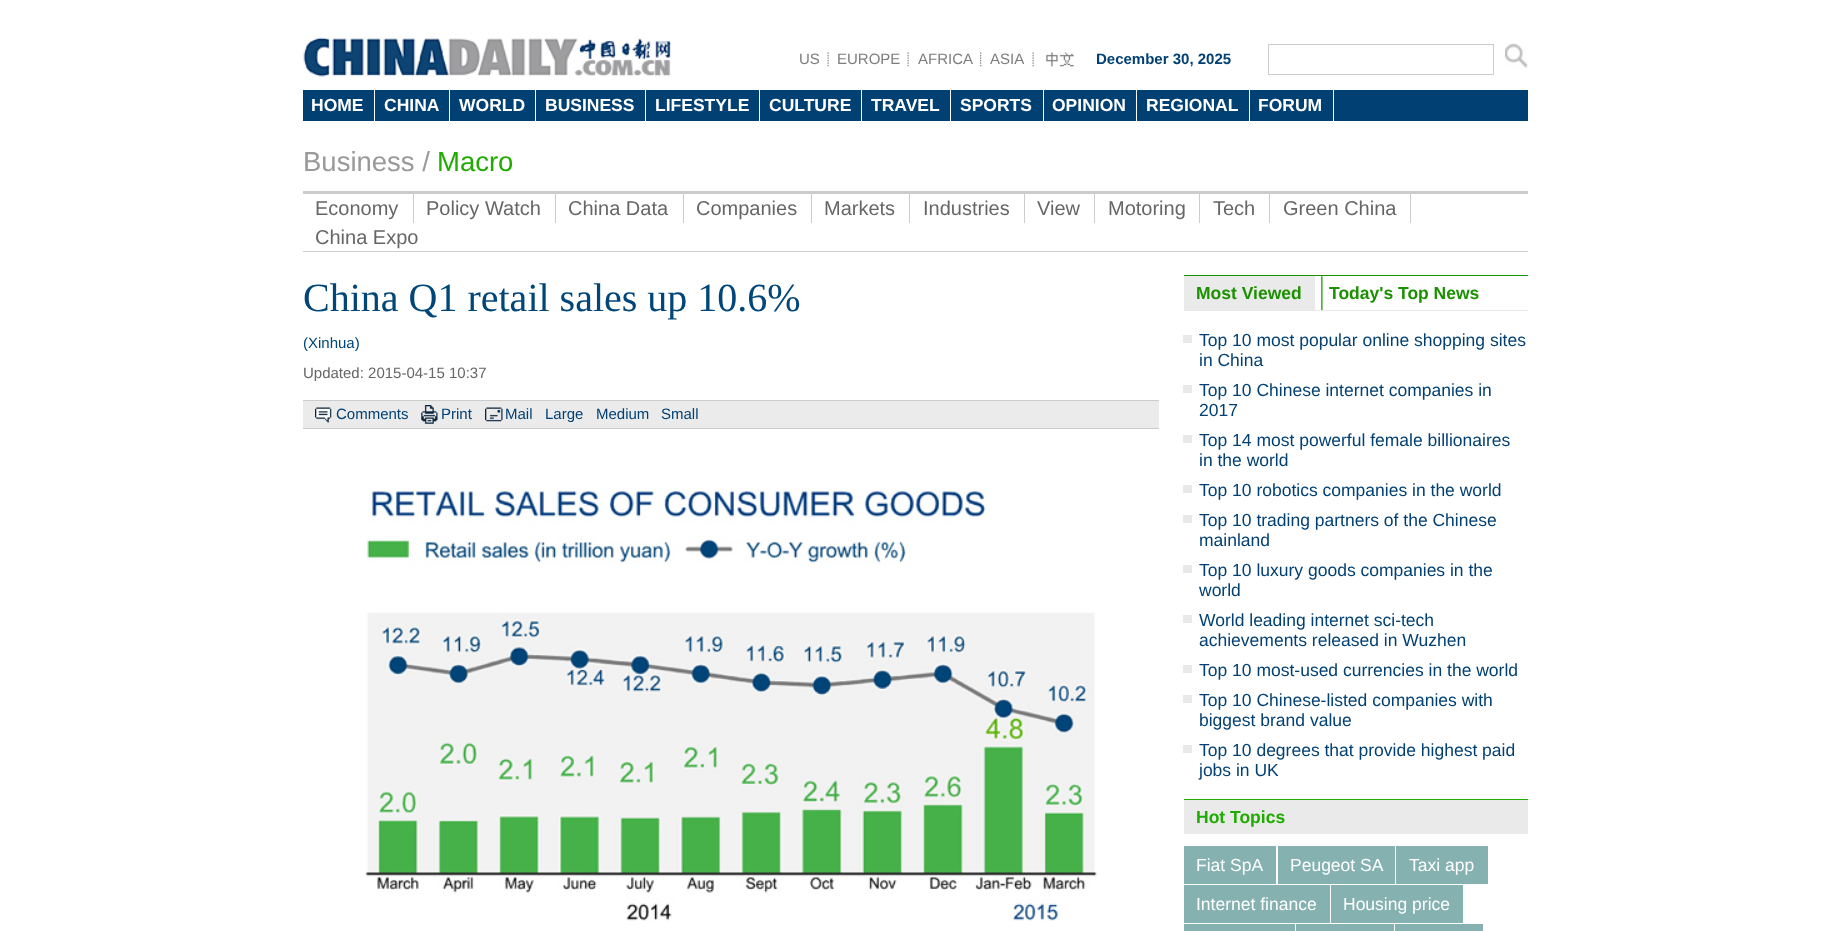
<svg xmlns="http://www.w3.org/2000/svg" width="1830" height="931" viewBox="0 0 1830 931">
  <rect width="100%" height="100%" fill="rgb(255,255,255)"/>
  <image x="303" y="37" width="368" height="40" href="pic1.png"/>
  <image x="827" y="52" width="2" height="15" href="pic2.png"/>
  <text x="799" y="64" font-family="Liberation Sans" font-size="15" fill="rgb(125,125,125)">US</text>
  <image x="907" y="52" width="2" height="15" href="pic2.png"/>
  <text x="837" y="64" font-family="Liberation Sans" font-size="15" fill="rgb(125,125,125)">EUROPE</text>
  <image x="980" y="52" width="2" height="15" href="pic3.png"/>
  <text x="918" y="64" font-family="Liberation Sans" font-size="15" fill="rgb(125,125,125)">AFRICA</text>
  <image x="1032" y="52" width="2" height="15" href="pic2.png"/>
  <text x="990" y="64" font-family="Liberation Sans" font-size="15" fill="rgb(125,125,125)">ASIA</text>
  <image x="1046" y="52" width="28" height="15" href="pic4.png"/>
  <text x="1096" y="64" font-family="Liberation Sans" font-size="15" font-weight="bold" fill="rgb(2,64,115)">December 30, 2025</text>
  <rect x="1268.5" y="44.5" width="225" height="30" fill="none" stroke="rgb(203,203,203)"/>
  <image x="1505" y="43" width="23" height="25" href="pic5.png"/>
  <rect x="303" y="90" width="1225" height="31" fill="rgb(1,64,115)"/>
  <rect x="374" y="90" width="1" height="31" fill="rgb(255,255,255)"/>
  <text x="311" y="111" font-family="Liberation Sans" font-size="17.5" font-weight="bold" fill="rgb(255,255,255)">HOME</text>
  <rect x="449" y="90" width="1" height="31" fill="rgb(255,255,255)"/>
  <text x="384" y="111" font-family="Liberation Sans" font-size="17.5" font-weight="bold" fill="rgb(255,255,255)">CHINA</text>
  <rect x="535" y="90" width="1" height="31" fill="rgb(255,255,255)"/>
  <text x="459" y="111" font-family="Liberation Sans" font-size="17.5" font-weight="bold" fill="rgb(255,255,255)">WORLD</text>
  <rect x="645" y="90" width="1" height="31" fill="rgb(255,255,255)"/>
  <text x="545" y="111" font-family="Liberation Sans" font-size="17.5" font-weight="bold" fill="rgb(255,255,255)">BUSINESS</text>
  <rect x="759" y="90" width="1" height="31" fill="rgb(255,255,255)"/>
  <text x="655" y="111" font-family="Liberation Sans" font-size="17.5" font-weight="bold" fill="rgb(255,255,255)">LIFESTYLE</text>
  <rect x="861" y="90" width="1" height="31" fill="rgb(255,255,255)"/>
  <text x="769" y="111" font-family="Liberation Sans" font-size="17.5" font-weight="bold" fill="rgb(255,255,255)">CULTURE</text>
  <rect x="950" y="90" width="1" height="31" fill="rgb(255,255,255)"/>
  <text x="871" y="111" font-family="Liberation Sans" font-size="17.5" font-weight="bold" fill="rgb(255,255,255)">TRAVEL</text>
  <rect x="1043" y="90" width="1" height="31" fill="rgb(255,255,255)"/>
  <text x="960" y="111" font-family="Liberation Sans" font-size="17.5" font-weight="bold" fill="rgb(255,255,255)">SPORTS</text>
  <rect x="1136" y="90" width="1" height="31" fill="rgb(255,255,255)"/>
  <text x="1052" y="111" font-family="Liberation Sans" font-size="17.5" font-weight="bold" fill="rgb(255,255,255)">OPINION</text>
  <rect x="1249" y="90" width="1" height="31" fill="rgb(255,255,255)"/>
  <text x="1146" y="111" font-family="Liberation Sans" font-size="17.5" font-weight="bold" fill="rgb(255,255,255)">REGIONAL</text>
  <rect x="1333" y="90" width="1" height="31" fill="rgb(255,255,255)"/>
  <text x="1258" y="111" font-family="Liberation Sans" font-size="17.5" font-weight="bold" fill="rgb(255,255,255)">FORUM</text>
  <text x="303" y="171" font-family="Liberation Sans" font-size="27.5" fill="rgb(153,153,153)">Business /</text>
  <text x="437" y="171" font-family="Liberation Sans" font-size="27.5" fill="rgb(31,171,0)">Macro</text>
  <rect x="303" y="191" width="1225" height="3" fill="rgb(204,204,204)"/>
  <rect x="303" y="251" width="1225" height="1" fill="rgb(204,204,204)"/>
  <rect x="413" y="194" width="1" height="29" fill="rgb(204,204,204)"/>
  <text x="315" y="215" font-family="Liberation Sans" font-size="20" fill="rgb(102,102,102)">Economy</text>
  <rect x="555" y="194" width="1" height="29" fill="rgb(204,204,204)"/>
  <text x="426" y="215" font-family="Liberation Sans" font-size="20" fill="rgb(102,102,102)">Policy Watch</text>
  <rect x="683" y="194" width="1" height="29" fill="rgb(204,204,204)"/>
  <text x="568" y="215" font-family="Liberation Sans" font-size="20" fill="rgb(102,102,102)">China Data</text>
  <rect x="811" y="194" width="1" height="29" fill="rgb(204,204,204)"/>
  <text x="696" y="215" font-family="Liberation Sans" font-size="20" fill="rgb(102,102,102)">Companies</text>
  <rect x="909" y="194" width="1" height="29" fill="rgb(204,204,204)"/>
  <text x="824" y="215" font-family="Liberation Sans" font-size="20" fill="rgb(102,102,102)">Markets</text>
  <rect x="1024" y="194" width="1" height="29" fill="rgb(204,204,204)"/>
  <text x="923" y="215" font-family="Liberation Sans" font-size="20" fill="rgb(102,102,102)">Industries</text>
  <rect x="1094" y="194" width="1" height="29" fill="rgb(204,204,204)"/>
  <text x="1037" y="215" font-family="Liberation Sans" font-size="20" fill="rgb(102,102,102)">View</text>
  <rect x="1199" y="194" width="1" height="29" fill="rgb(204,204,204)"/>
  <text x="1108" y="215" font-family="Liberation Sans" font-size="20" fill="rgb(102,102,102)">Motoring</text>
  <rect x="1269" y="194" width="1" height="29" fill="rgb(204,204,204)"/>
  <text x="1213" y="215" font-family="Liberation Sans" font-size="20" fill="rgb(102,102,102)">Tech</text>
  <rect x="1410" y="194" width="1" height="29" fill="rgb(204,204,204)"/>
  <g font-family="Liberation Sans" font-size="20" fill="rgb(102,102,102)">
    <text x="1283" y="215">Green China</text>
    <text x="315" y="244">China Expo</text>
  </g>
  <text x="303" y="311" font-family="Liberation Serif" font-size="40" fill="rgb(0,70,120)">China Q1 retail sales up 10.6%</text>
  <text x="303" y="348" font-family="Liberation Sans" font-size="15" fill="rgb(0,70,120)">(Xinhua)</text>
  <text x="303" y="378" font-family="Liberation Sans" font-size="15" fill="rgb(102,102,102)">Updated: 2015-04-15 10:37</text>
  <rect x="303" y="401" width="856" height="27" fill="rgb(235,235,235)"/>
  <rect x="303" y="400" width="856" height="1" fill="rgb(204,204,204)"/>
  <rect x="303" y="428" width="856" height="1" fill="rgb(204,204,204)"/>
  <image x="315" y="407" width="17" height="16" href="pic6.png"/>
  <text x="336" y="419" font-family="Liberation Sans" font-size="15" fill="rgb(2,64,115)">Comments</text>
  <image x="421" y="405" width="17" height="19" href="pic7.png"/>
  <text x="441" y="419" font-family="Liberation Sans" font-size="15" fill="rgb(2,64,115)">Print</text>
  <image x="485" y="407" width="18" height="15" href="pic8.png"/>
  <g font-family="Liberation Sans" font-size="15" fill="rgb(2,64,115)">
    <text x="505" y="419">Mail</text>
    <text x="545" y="419">Large</text>
    <text x="596" y="419">Medium</text>
    <text x="661" y="419">Small</text>
  </g>
  <image x="365" y="489" width="732" height="432" href="pic9.png"/>
  <image x="1321" y="276" width="2" height="34" href="pic10.png"/>
  <rect x="1184" y="275" width="344" height="1" fill="rgb(26,146,0)"/>
  <rect x="1184" y="310" width="344" height="1" fill="rgb(234,234,234)"/>
  <rect x="1184" y="276" width="131" height="34" fill="rgb(234,234,234)"/>
  <g font-family="Liberation Sans" font-size="17.5" font-weight="bold" fill="rgb(27,145,0)">
    <text x="1196" y="299">Most Viewed</text>
    <text x="1329" y="299">Today's Top News</text>
  </g>
  <rect x="1183" y="335" width="9" height="8" fill="rgb(233,233,233)"/>
  <g font-family="Liberation Sans" font-size="17.5" fill="rgb(2,64,115)">
    <text>
      <tspan x="1199" y="346">Top 10 most popular online shopping sites</tspan>
      <tspan x="1199" y="366">in China</tspan>
    </text>
  </g>
  <rect x="1183" y="385" width="9" height="8" fill="rgb(233,233,233)"/>
  <g font-family="Liberation Sans" font-size="17.5" fill="rgb(2,64,115)">
    <text>
      <tspan x="1199" y="396">Top 10 Chinese internet companies in</tspan>
      <tspan x="1199" y="416">2017</tspan>
    </text>
  </g>
  <rect x="1183" y="435" width="9" height="8" fill="rgb(233,233,233)"/>
  <g font-family="Liberation Sans" font-size="17.5" fill="rgb(2,64,115)">
    <text>
      <tspan x="1199" y="446">Top 14 most powerful female billionaires</tspan>
      <tspan x="1199" y="466">in the world</tspan>
    </text>
  </g>
  <rect x="1183" y="485" width="9" height="8" fill="rgb(233,233,233)"/>
  <text x="1199" y="496" font-family="Liberation Sans" font-size="17.5" fill="rgb(2,64,115)">Top 10 robotics companies in the world</text>
  <rect x="1183" y="515" width="9" height="8" fill="rgb(233,233,233)"/>
  <g font-family="Liberation Sans" font-size="17.5" fill="rgb(2,64,115)">
    <text>
      <tspan x="1199" y="526">Top 10 trading partners of the Chinese</tspan>
      <tspan x="1199" y="546">mainland</tspan>
    </text>
  </g>
  <rect x="1183" y="565" width="9" height="8" fill="rgb(233,233,233)"/>
  <g font-family="Liberation Sans" font-size="17.5" fill="rgb(2,64,115)">
    <text>
      <tspan x="1199" y="576">Top 10 luxury goods companies in the</tspan>
      <tspan x="1199" y="596">world</tspan>
    </text>
  </g>
  <rect x="1183" y="615" width="9" height="8" fill="rgb(233,233,233)"/>
  <g font-family="Liberation Sans" font-size="17.5" fill="rgb(2,64,115)">
    <text>
      <tspan x="1199" y="626">World leading internet sci-tech</tspan>
      <tspan x="1199" y="646">achievements released in Wuzhen</tspan>
    </text>
  </g>
  <rect x="1183" y="665" width="9" height="8" fill="rgb(233,233,233)"/>
  <text x="1199" y="676" font-family="Liberation Sans" font-size="17.5" fill="rgb(2,64,115)">Top 10 most-used currencies in the world</text>
  <rect x="1183" y="695" width="9" height="8" fill="rgb(233,233,233)"/>
  <g font-family="Liberation Sans" font-size="17.5" fill="rgb(2,64,115)">
    <text>
      <tspan x="1199" y="706">Top 10 Chinese-listed companies with</tspan>
      <tspan x="1199" y="726">biggest brand value</tspan>
    </text>
  </g>
  <rect x="1183" y="745" width="9" height="8" fill="rgb(233,233,233)"/>
  <g font-family="Liberation Sans" font-size="17.5" fill="rgb(2,64,115)">
    <text>
      <tspan x="1199" y="756">Top 10 degrees that provide highest paid</tspan>
      <tspan x="1199" y="776">jobs in UK</tspan>
    </text>
  </g>
  <rect x="1184" y="800" width="344" height="34" fill="rgb(234,234,234)"/>
  <rect x="1184" y="799" width="344" height="1" fill="rgb(31,173,0)"/>
  <text x="1196" y="823" font-family="Liberation Sans" font-size="17.5" font-weight="bold" fill="rgb(31,171,0)">Hot Topics</text>
  <rect x="1184" y="846" width="92" height="38" fill="rgb(133,177,176)"/>
  <text x="1196" y="871" font-family="Liberation Sans" font-size="17.5" fill="rgb(255,255,255)">Fiat SpA</text>
  <rect x="1278" y="846" width="117" height="38" fill="rgb(133,177,176)"/>
  <text x="1290" y="871" font-family="Liberation Sans" font-size="17.5" fill="rgb(255,255,255)">Peugeot SA</text>
  <rect x="1396" y="846" width="92" height="38" fill="rgb(133,177,176)"/>
  <text x="1409" y="871" font-family="Liberation Sans" font-size="17.5" fill="rgb(255,255,255)">Taxi app</text>
  <rect x="1184" y="885" width="146" height="38" fill="rgb(133,177,176)"/>
  <text x="1196" y="910" font-family="Liberation Sans" font-size="17.5" fill="rgb(255,255,255)">Internet finance</text>
  <rect x="1331" y="885" width="132" height="38" fill="rgb(133,177,176)"/>
  <text x="1343" y="910" font-family="Liberation Sans" font-size="17.5" fill="rgb(255,255,255)">Housing price</text>
  <rect x="1184" y="924" width="111" height="7" fill="rgb(133,177,176)"/>
  <rect x="1296" y="924" width="98" height="7" fill="rgb(133,177,176)"/>
  <rect x="1395" y="924" width="88" height="7" fill="rgb(133,177,176)"/>
</svg>
